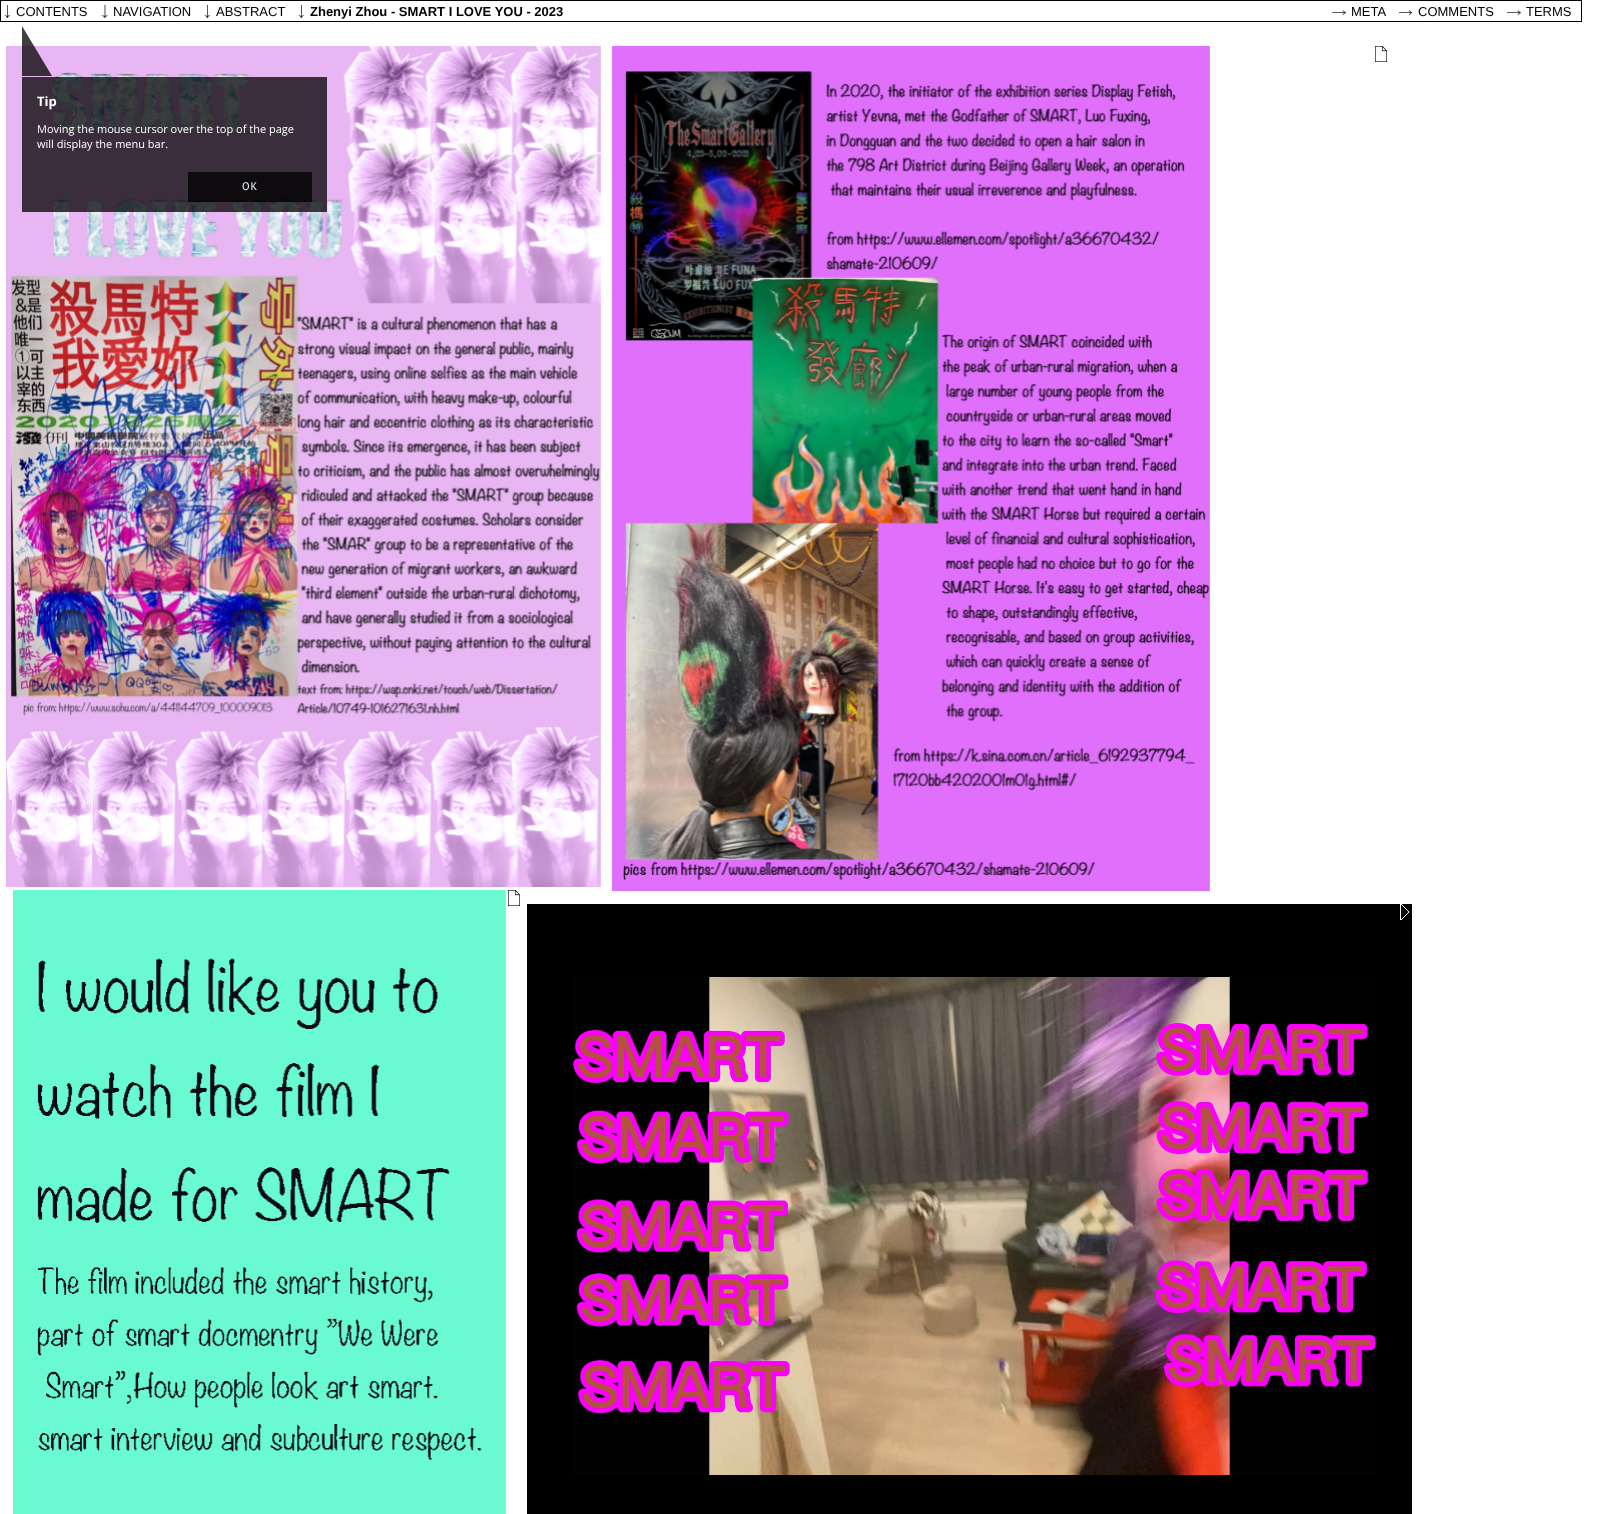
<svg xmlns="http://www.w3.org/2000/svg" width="1599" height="1514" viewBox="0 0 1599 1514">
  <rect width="100%" height="100%" fill="rgb(255,255,255)"/>
  <rect x="0.5" y="0.5" width="1581" height="21" fill="none" stroke="rgb(0,0,0)"/>
  <image x="4" y="5" width="6" height="14" href="pic1.png"/>
  <text x="16" y="16" font-family="Liberation Sans" font-size="13" fill="rgb(0,0,0)">CONTENTS</text>
  <image x="101" y="5" width="7" height="14" href="pic2.png"/>
  <text x="113" y="16" font-family="Liberation Sans" font-size="13" fill="rgb(0,0,0)">NAVIGATION</text>
  <image x="204" y="5" width="6" height="14" href="pic1.png"/>
  <text x="216" y="16" font-family="Liberation Sans" font-size="13" fill="rgb(0,0,0)">ABSTRACT</text>
  <image x="298" y="5" width="6" height="14" href="pic1.png"/>
  <text x="310" y="16" font-family="Liberation Sans" font-size="13" font-weight="bold" fill="rgb(0,0,0)">Zhenyi Zhou - SMART I LOVE YOU - 2023</text>
  <image x="1332" y="10" width="15" height="6" href="pic3.png"/>
  <text x="1351" y="16" font-family="Liberation Sans" font-size="13" fill="rgb(0,0,0)">META</text>
  <image x="1399" y="10" width="14" height="6" href="pic4.png"/>
  <text x="1418" y="16" font-family="Liberation Sans" font-size="13" fill="rgb(0,0,0)">COMMENTS</text>
  <image x="1507" y="10" width="15" height="6" href="pic3.png"/>
  <text x="1526" y="16" font-family="Liberation Sans" font-size="13" fill="rgb(0,0,0)">TERMS</text>
  <image x="6" y="46" width="595" height="841" href="pic5.png"/>
  <image x="612" y="46" width="598" height="845" href="pic6.png"/>
  <image x="1375" y="46" width="12" height="16" href="pic7.png"/>
  <image x="13" y="890" width="493" height="624" href="pic8.png"/>
  <image x="508" y="890" width="12" height="16" href="pic7.png"/>
  <rect x="527" y="904" width="885" height="610" fill="rgb(0,0,0)"/>
  <image x="1400" y="904" width="9" height="16" href="pic9.png"/>
  <image x="571" y="977" width="805" height="498" href="pic10.png"/>
  <rect x="22" y="77" width="305" height="135" fill="rgba(0,0,0,0.75)"/>
  <path d="M52 76H22V26Z" fill="rgba(0,0,0,0.75)"/>
  <text x="37" y="106" font-family="Open Sans" font-size="13" font-weight="bold" fill="rgb(255,255,255)">Tip</text>
  <g font-family="Open Sans" font-size="11" fill="rgb(255,255,255)">
    <text>
      <tspan x="37" y="133">Moving the mouse cursor over the top of the page</tspan>
      <tspan x="37" y="148">will display the menu bar.</tspan>
    </text>
  </g>
  <rect x="188" y="172" width="124" height="30" fill="rgba(0,0,0,0.75)"/>
  <text x="242" y="190" font-family="PT Sans" font-size="11" letter-spacing="1" fill="rgb(255,255,255)">OK</text>
</svg>
